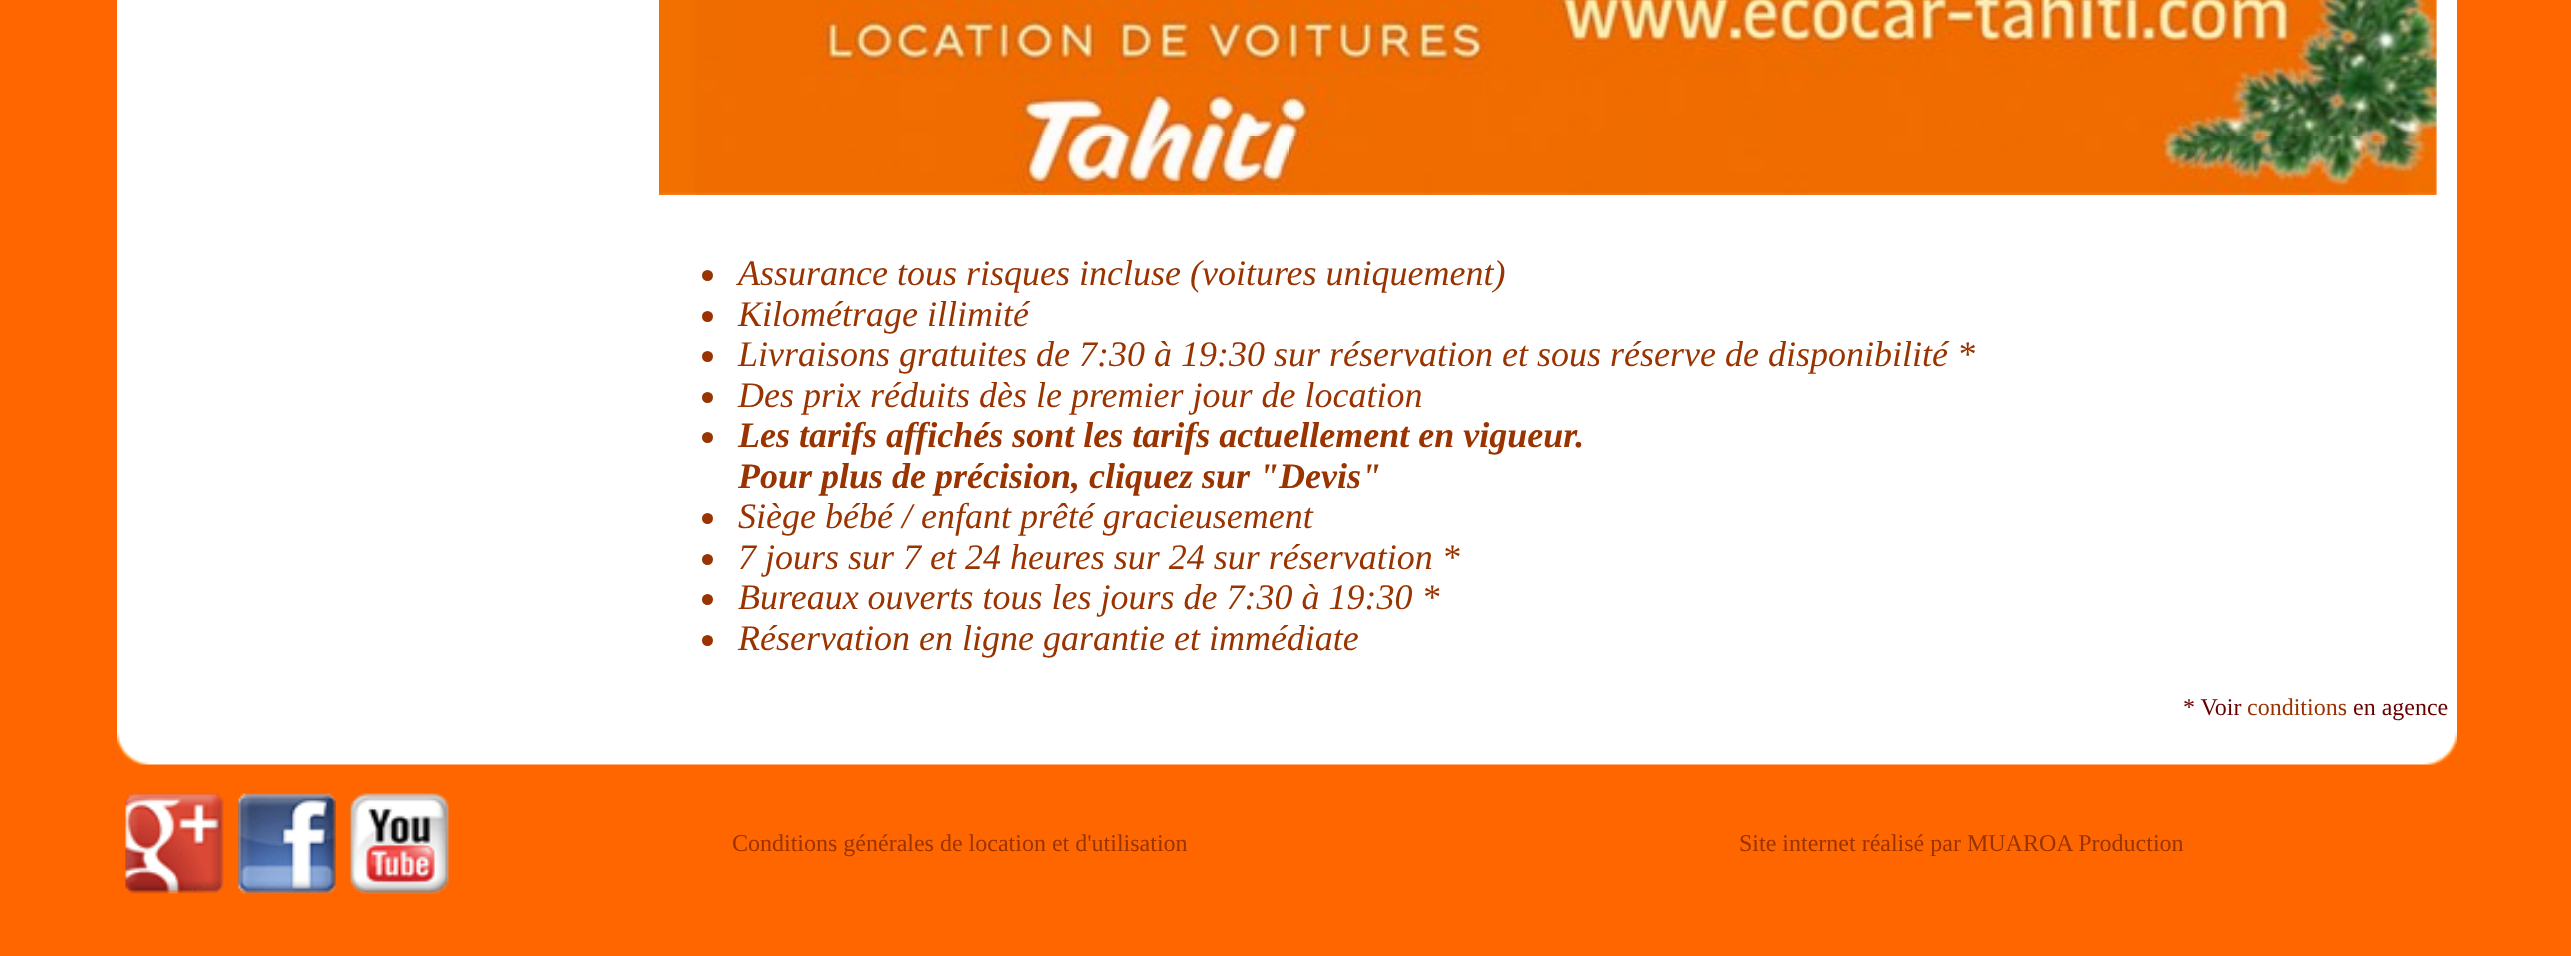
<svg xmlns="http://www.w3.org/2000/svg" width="2571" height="956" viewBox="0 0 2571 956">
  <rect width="100%" height="100%" fill="rgb(255,102,0)"/>
  <rect x="117" y="0" width="2340" height="731" fill="rgb(255,255,255)"/>
  <image x="659" y="0" width="1778" height="195" href="pic1.png"/>
  <circle cx="707.5" cy="275.5" r="5.5" fill="rgb(153,51,0)"/>
  <text x="738" y="285" font-family="Liberation Serif" font-size="36" font-style="italic" fill="rgb(153,51,0)">Assurance tous risques incluse (voitures uniquement)</text>
  <circle cx="707.5" cy="316.5" r="5.5" fill="rgb(153,51,0)"/>
  <text x="738" y="326" font-family="Liberation Serif" font-size="36" font-style="italic" fill="rgb(153,51,0)">Kilométrage illimité</text>
  <circle cx="707.5" cy="356.5" r="5.5" fill="rgb(153,51,0)"/>
  <text x="738" y="366" font-family="Liberation Serif" font-size="36" font-style="italic" fill="rgb(153,51,0)">Livraisons gratuites de 7:30 à 19:30 sur réservation et sous réserve de disponibilité *</text>
  <circle cx="707.5" cy="397.5" r="5.5" fill="rgb(153,51,0)"/>
  <text x="738" y="407" font-family="Liberation Serif" font-size="36" font-style="italic" fill="rgb(153,51,0)">Des prix réduits dès le premier jour de location</text>
  <circle cx="707.5" cy="437.5" r="5.5" fill="rgb(153,51,0)"/>
  <g font-family="Liberation Serif" font-size="36" font-weight="bold" font-style="italic" fill="rgb(153,51,0)">
    <text>
      <tspan x="738" y="447">Les tarifs affichés sont les tarifs actuellement en vigueur.</tspan>
      <tspan x="738" y="488">Pour plus de précision, cliquez sur "Devis"</tspan>
    </text>
  </g>
  <circle cx="707.5" cy="518.5" r="5.5" fill="rgb(153,51,0)"/>
  <text x="738" y="528" font-family="Liberation Serif" font-size="36" font-style="italic" fill="rgb(153,51,0)">Siège bébé / enfant prêté gracieusement</text>
  <circle cx="707.5" cy="559.5" r="5.5" fill="rgb(153,51,0)"/>
  <text x="738" y="569" font-family="Liberation Serif" font-size="36" font-style="italic" fill="rgb(153,51,0)">7 jours sur 7 et 24 heures sur 24 sur réservation *</text>
  <circle cx="707.5" cy="599.5" r="5.5" fill="rgb(153,51,0)"/>
  <text x="738" y="609" font-family="Liberation Serif" font-size="36" font-style="italic" fill="rgb(153,51,0)">Bureaux ouverts tous les jours de 7:30 à 19:30 *</text>
  <circle cx="707.5" cy="640.5" r="5.5" fill="rgb(153,51,0)"/>
  <text x="738" y="650" font-family="Liberation Serif" font-size="36" font-style="italic" fill="rgb(153,51,0)">Réservation en ligne garantie et immédiate</text>
  <text x="2183" y="715" font-family="Liberation Serif" font-size="24" fill="rgb(102,0,0)">* Voir</text>
  <text x="2247" y="715" font-family="Liberation Serif" font-size="24" fill="rgb(153,51,0)">conditions</text>
  <text x="2353" y="715" font-family="Liberation Serif" font-size="24" fill="rgb(102,0,0)">en agence</text>
  <image x="117" y="731" width="2340" height="34" href="pic2.png"/>
  <image x="125" y="793" width="99" height="101" href="pic3.png"/>
  <image x="125" y="793" width="99" height="101" href="pic4.png"/>
  <image x="238" y="793" width="98" height="101" href="pic5.png"/>
  <image x="238" y="793" width="98" height="101" href="pic6.png"/>
  <image x="350" y="793" width="99" height="101" href="pic7.png"/>
  <image x="350" y="793" width="99" height="101" href="pic8.png"/>
  <g font-family="Liberation Serif" font-size="24" fill="rgb(153,51,0)">
    <text x="732" y="851">Conditions générales de location et d'utilisation</text>
    <text x="1739" y="851">Site internet réalisé par MUAROA Production</text>
  </g>
</svg>
